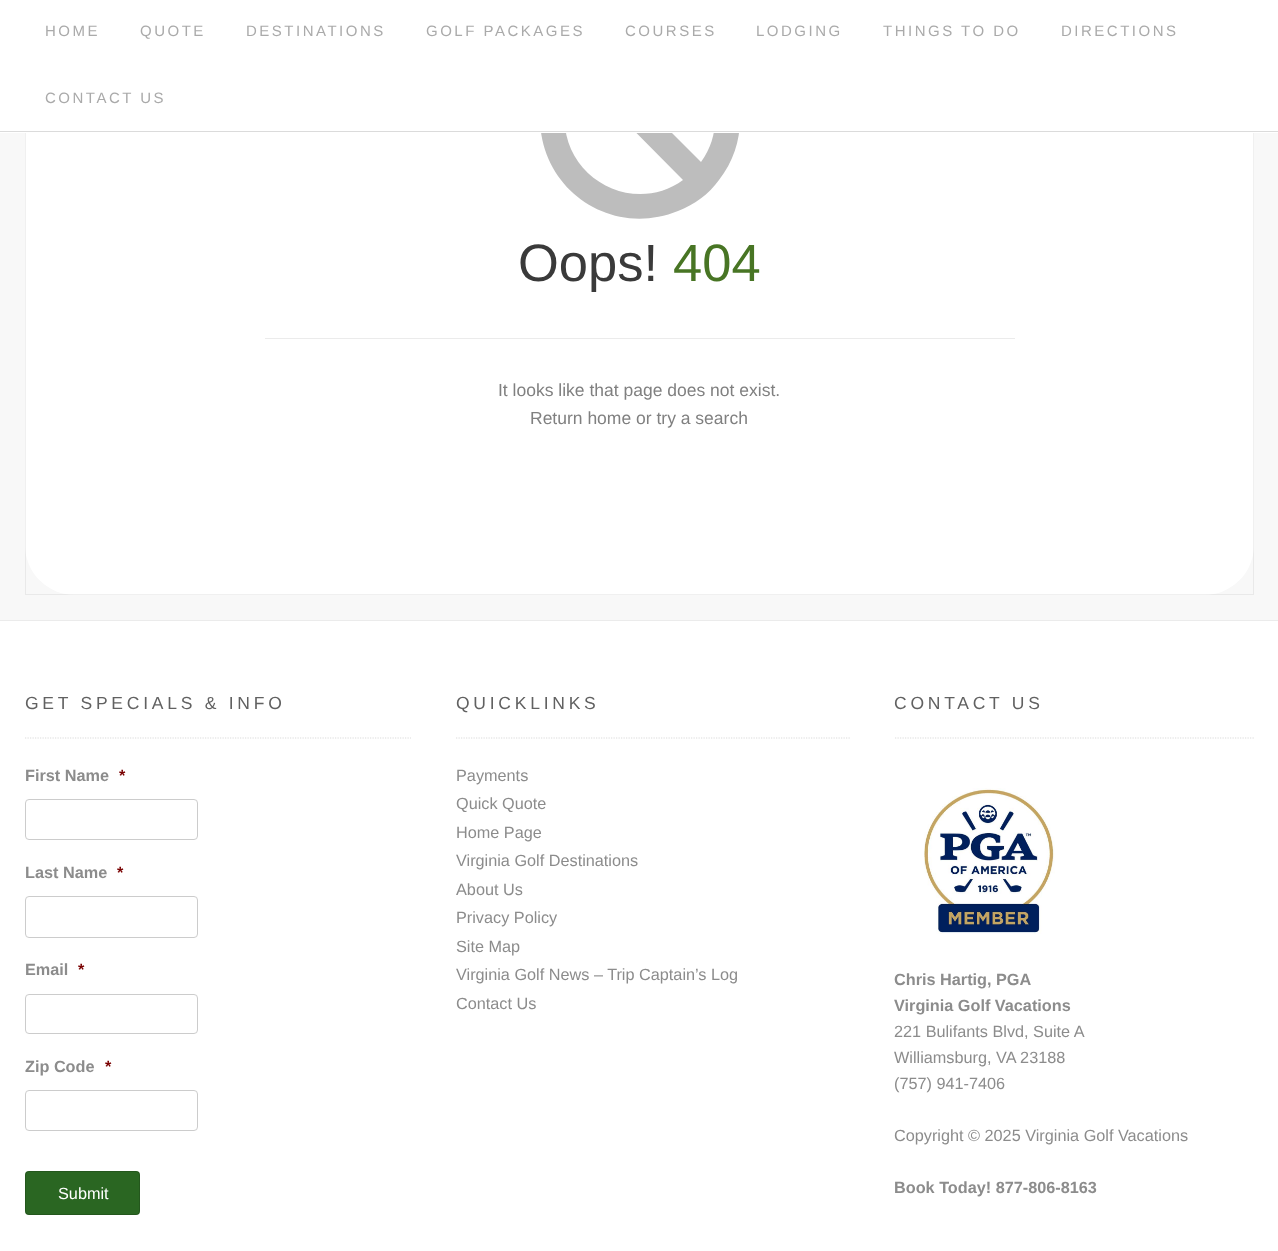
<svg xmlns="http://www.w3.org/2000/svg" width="1278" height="1251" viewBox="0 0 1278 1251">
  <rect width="100%" height="100%" fill="rgb(248,248,248)"/>
  <rect x="25" y="-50" width="1229" height="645" rx="50" fill="rgb(255,255,255)"/>
  <rect x="25.5" y="-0.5" width="1228" height="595" fill="none" stroke="rgba(0,0,0,0.06)"/>
  <path d="M683 180L579 75C571 86 566 99 565 113C560 176 632 217 683 180ZM701 162C738 111 697 39 634 44C620 45 608 50 597 58ZM540 119C541 48 611-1 678 26C694 33 709 44 719 58C733 75 740 97 740 119C740 141 733 162 719 180C709 194 694 205 678 211C611 238 541 190 540 119Z" fill="rgb(189,189,189)"/>
  <rect x="0" y="0" width="1278" height="133" fill="rgb(255,255,255)"/>
  <rect x="0" y="131" width="1278" height="1" fill="rgb(219,219,219)"/>
  <g font-family="Liberation Sans" font-size="15" letter-spacing="2.5" fill="rgb(170,170,170)">
    <text x="45" y="36">HOME</text>
    <text x="140" y="36">QUOTE</text>
    <text x="246" y="36">DESTINATIONS</text>
    <text x="426" y="36">GOLF PACKAGES</text>
    <text x="625" y="36">COURSES</text>
    <text x="756" y="36">LODGING</text>
    <text x="883" y="36">THINGS TO DO</text>
    <text x="1061" y="36">DIRECTIONS</text>
    <text x="45" y="103">CONTACT US</text>
  </g>
  <rect x="265" y="338" width="750" height="1" fill="rgb(235,235,235)"/>
  <text x="518" y="281" font-family="Liberation Sans" font-size="52.5" fill="rgb(58,58,58)">Oops!</text>
  <text x="673" y="281" font-family="Liberation Sans" font-size="52.5" fill="rgb(72,117,36)">404</text>
  <g font-family="Liberation Sans" font-size="17.5" fill="rgb(128,128,128)">
    <text x="498" y="396">It looks like that page does not exist.</text>
    <text x="530" y="424">Return home or try a search</text>
  </g>
  <rect x="0" y="621" width="1278" height="630" fill="rgb(255,255,255)"/>
  <rect x="0" y="620" width="1278" height="1" fill="rgb(235,235,235)"/>
  <path d="M25 738H411" fill="none" stroke="rgb(219,219,219)" stroke-width="1.2" stroke-dasharray="1.25 1.25"/>
  <text x="25" y="709" font-family="Liberation Sans" font-size="17.5" letter-spacing="3.75" fill="rgb(97,97,97)">GET SPECIALS &amp; INFO</text>
  <text x="25" y="781" font-family="Liberation Sans" font-size="16.25" font-weight="bold" fill="rgb(140,140,140)">First Name</text>
  <text x="119" y="781" font-family="Liberation Sans" font-size="16.25" font-weight="bold" fill="rgb(121,0,0)">*</text>
  <rect x="25.5" y="799.5" width="172" height="40" rx="3.5" fill="none" stroke="rgb(204,204,204)"/>
  <text x="25" y="878" font-family="Liberation Sans" font-size="16.25" font-weight="bold" fill="rgb(140,140,140)">Last Name</text>
  <text x="117" y="878" font-family="Liberation Sans" font-size="16.25" font-weight="bold" fill="rgb(121,0,0)">*</text>
  <rect x="25.5" y="896.5" width="172" height="41" rx="3.5" fill="none" stroke="rgb(204,204,204)"/>
  <text x="25" y="975" font-family="Liberation Sans" font-size="16.25" font-weight="bold" fill="rgb(140,140,140)">Email</text>
  <text x="78" y="975" font-family="Liberation Sans" font-size="16.25" font-weight="bold" fill="rgb(121,0,0)">*</text>
  <rect x="25.5" y="994.5" width="172" height="39" rx="3.5" fill="none" stroke="rgb(204,204,204)"/>
  <text x="25" y="1072" font-family="Liberation Sans" font-size="16.25" font-weight="bold" fill="rgb(140,140,140)">Zip Code</text>
  <text x="105" y="1072" font-family="Liberation Sans" font-size="16.25" font-weight="bold" fill="rgb(121,0,0)">*</text>
  <rect x="25.5" y="1090.5" width="172" height="40" rx="3.5" fill="none" stroke="rgb(204,204,204)"/>
  <rect x="25" y="1171" width="115" height="44" rx="4" fill="rgb(42,102,34)"/>
  <rect x="25.5" y="1171.5" width="114" height="43" rx="3.5" fill="none" stroke="rgba(0,0,0,0.14)"/>
  <text x="58" y="1199" font-family="Liberation Sans" font-size="16.25" fill="rgb(255,255,255)">Submit</text>
  <path d="M456 738H850" fill="none" stroke="rgb(219,219,219)" stroke-width="1.2" stroke-dasharray="1.25 1.25"/>
  <text x="456" y="709" font-family="Liberation Sans" font-size="17.5" letter-spacing="3.75" fill="rgb(97,97,97)">QUICKLINKS</text>
  <g font-family="Liberation Sans" font-size="16.25" fill="rgb(140,140,140)">
    <text>
      <tspan x="456" y="781">Payments</tspan>
      <tspan x="456" y="809">Quick Quote</tspan>
      <tspan x="456" y="838">Home Page</tspan>
      <tspan x="456" y="866">Virginia Golf Destinations</tspan>
      <tspan x="456" y="895">About Us</tspan>
      <tspan x="456" y="923">Privacy Policy</tspan>
      <tspan x="456" y="952">Site Map</tspan>
      <tspan x="456" y="980">Virginia Golf News – Trip Captain’s Log</tspan>
      <tspan x="456" y="1009">Contact Us</tspan>
    </text>
  </g>
  <path d="M895 738H1254" fill="none" stroke="rgb(219,219,219)" stroke-width="1.2" stroke-dasharray="1.25 1.25"/>
  <text x="894" y="709" font-family="Liberation Sans" font-size="17.5" letter-spacing="3.75" fill="rgb(97,97,97)">CONTACT US</text>
  <image x="924" y="788" width="131" height="146" href="pic1.png"/>
  <g font-family="Liberation Sans" font-size="16.25" font-weight="bold" fill="rgb(140,140,140)">
    <text>
      <tspan x="894" y="985">Chris Hartig, PGA</tspan>
      <tspan x="894" y="1011">Virginia Golf Vacations</tspan>
    </text>
  </g>
  <g font-family="Liberation Sans" font-size="16.25" fill="rgb(140,140,140)">
    <text>
      <tspan x="894" y="1037">221 Bulifants Blvd, Suite A</tspan>
      <tspan x="894" y="1063">Williamsburg, VA 23188</tspan>
      <tspan x="894" y="1089">(757) 941-7406</tspan>
    </text>
    <text x="894" y="1141">Copyright © 2025 Virginia Golf Vacations</text>
  </g>
  <text x="894" y="1193" font-family="Liberation Sans" font-size="16.25" font-weight="bold" fill="rgb(140,140,140)">Book Today! 877-806-8163</text>
</svg>
